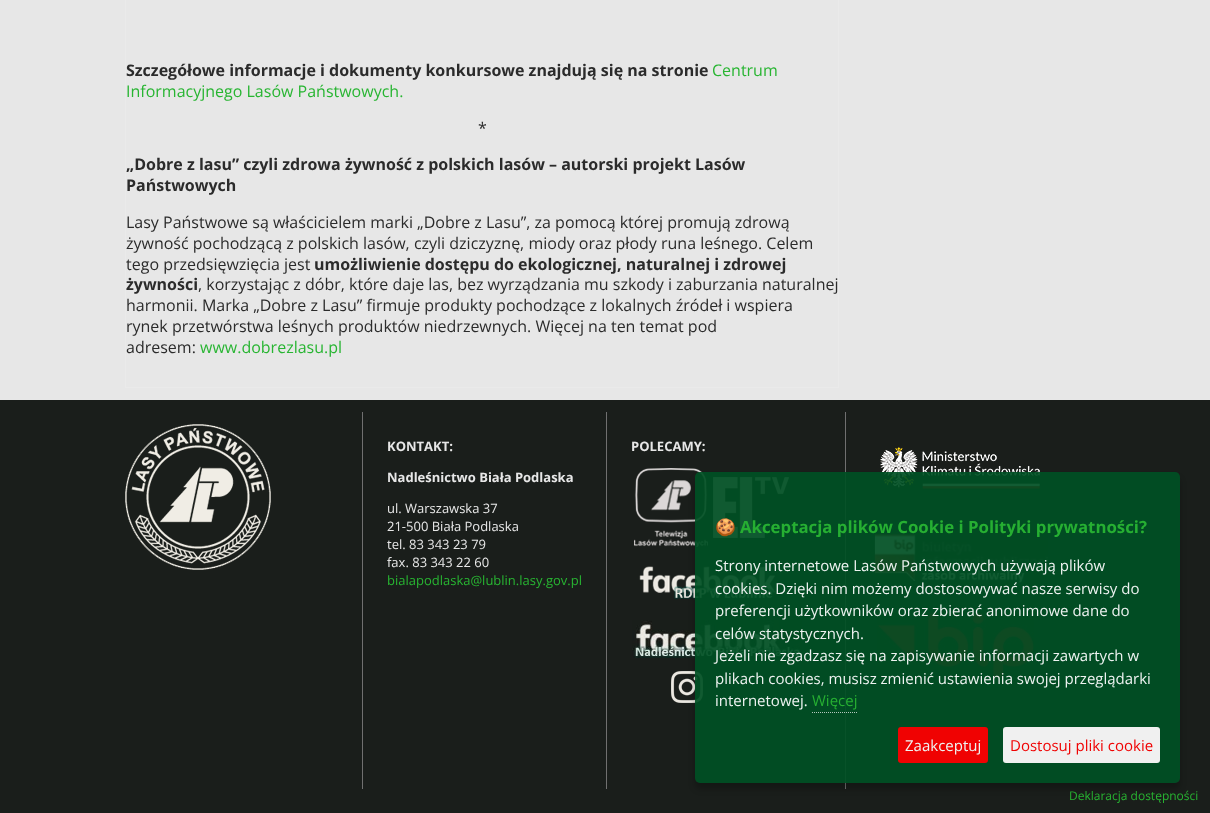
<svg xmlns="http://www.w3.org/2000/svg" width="1210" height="813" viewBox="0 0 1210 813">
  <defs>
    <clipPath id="clip1"><path d="M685 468H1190V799H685ZM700 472H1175C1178 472 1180 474 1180 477V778C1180 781 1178 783 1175 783H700C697 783 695 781 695 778V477C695 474 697 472 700 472Z" clip-rule="evenodd"/></clipPath>
  </defs>
  <rect width="100%" height="100%" fill="rgb(231,231,231)"/>
  <rect x="838" y="0" width="1" height="388" fill="rgb(234,234,234)"/>
  <rect x="125" y="387" width="714" height="1" fill="rgb(234,234,234)"/>
  <rect x="125" y="0" width="1" height="388" fill="rgb(234,234,234)"/>
  <text x="126" y="76" font-family="Open Sans" font-size="16" font-weight="bold" fill="rgb(43,43,43)">Szczegółowe informacje i dokumenty konkursowe znajdują się na stronie</text>
  <g font-family="Open Sans" font-size="16" fill="rgb(40,181,50)">
    <text x="712" y="76">Centrum</text>
    <text x="126" y="97">Informacyjnego Lasów Państwowych.</text>
  </g>
  <text x="478" y="134" font-family="Open Sans" font-size="16" fill="rgb(43,43,43)">*</text>
  <g font-family="Open Sans" font-size="16" font-weight="bold" fill="rgb(43,43,43)">
    <text>
      <tspan x="126" y="170">„Dobre z lasu” czyli zdrowa żywność z polskich lasów – autorski projekt Lasów</tspan>
      <tspan x="126" y="191">Państwowych</tspan>
    </text>
  </g>
  <g font-family="Open Sans" font-size="16" fill="rgb(43,43,43)">
    <text>
      <tspan x="126" y="228">Lasy Państwowe są właścicielem marki „Dobre z Lasu”, za pomocą której promują zdrową</tspan>
      <tspan x="126" y="249">żywność pochodzącą z polskich lasów, czyli dziczyznę, miody oraz płody runa leśnego. Celem</tspan>
      <tspan x="126" y="270">tego przedsięwzięcia jest</tspan>
    </text>
  </g>
  <g font-family="Open Sans" font-size="16" font-weight="bold" fill="rgb(43,43,43)">
    <text x="314" y="270">umożliwienie dostępu do ekologicznej, naturalnej i zdrowej</text>
    <text x="126" y="290">żywności</text>
  </g>
  <g font-family="Open Sans" font-size="16" fill="rgb(43,43,43)">
    <text x="198" y="290">, korzystając z dóbr, które daje las, bez wyrządzania mu szkody i zaburzania naturalnej</text>
    <text>
      <tspan x="126" y="311">harmonii. Marka „Dobre z Lasu” firmuje produkty pochodzące z lokalnych źródeł i wspiera</tspan>
      <tspan x="126" y="332">rynek przetwórstwa leśnych produktów niedrzewnych. Więcej na ten temat pod</tspan>
      <tspan x="126" y="353">adresem:</tspan>
    </text>
  </g>
  <text x="200" y="353" font-family="Open Sans" font-size="16" fill="rgb(40,181,50)">www.dobrezlasu.pl</text>
  <rect x="0" y="400" width="1210" height="413" fill="rgb(26,30,27)"/>
  <rect x="362" y="412" width="1" height="377" fill="rgb(112,112,112)"/>
  <image x="125" y="424" width="146" height="146" href="pic1.png"/>
  <rect x="606" y="412" width="1" height="377" fill="rgb(112,112,112)"/>
  <g font-family="Open Sans" font-size="13" font-weight="bold" fill="rgb(231,231,231)">
    <text x="387" y="451">KONTAKT:</text>
    <text x="387" y="482">Nadleśnictwo Biała Podlaska</text>
  </g>
  <g font-family="Open Sans" font-size="13" fill="rgb(231,231,231)">
    <text>
      <tspan x="387" y="513">ul. Warszawska 37</tspan>
      <tspan x="387" y="531">21-500 Biała Podlaska</tspan>
      <tspan x="387" y="549">tel. 83 343 23 79</tspan>
      <tspan x="387" y="567">fax. 83 343 22 60</tspan>
    </text>
  </g>
  <text x="387" y="585" font-family="Open Sans" font-size="13" fill="rgb(40,181,50)">bialapodlaska@lublin.lasy.gov.pl</text>
  <rect x="845" y="412" width="1" height="377" fill="rgb(112,112,112)"/>
  <text x="631" y="451" font-family="Open Sans" font-size="13" font-weight="bold" fill="rgb(231,231,231)">POLECAMY:</text>
  <image x="634" y="468" width="74" height="79" href="pic2.png"/>
  <image x="713" y="477" width="76" height="61" href="pic3.png"/>
  <image x="639" y="566" width="137" height="33" href="pic4.png"/>
  <image x="632" y="620" width="170" height="38" href="pic5.png"/>
  <image x="671" y="671" width="32" height="32" href="pic6.png"/>
  <image x="880" y="447" width="160" height="42" href="pic7.png"/>
  <image x="870" y="529" width="178" height="56" href="pic8.png"/>
  <image x="877" y="612" width="157" height="67" href="pic9.png"/>
  <text x="1069" y="800" font-family="Open Sans" font-size="12" fill="rgb(40,181,50)">Deklaracja dostępności</text>
  <g clip-path="url(#clip1)">
    <rect x="695" y="478" width="485" height="311" rx="5" fill="rgba(0,0,0,0.23)" filter="blur(3px)"/>
  </g>
  <rect x="695" y="472" width="485" height="311" rx="5" fill="rgba(0,80,35,0.93)"/>
  <text x="715" y="533" font-family="Noto Color Emoji" font-size="16.8" font-weight="bold" fill="rgb(38,175,50)">🍪</text>
  <text x="740" y="533" font-family="Open Sans" font-size="16.8" font-weight="bold" fill="rgb(38,175,50)">Akceptacja plików Cookie i Polityki prywatności?</text>
  <g font-family="Open Sans" font-size="15" fill="rgb(238,243,241)">
    <text>
      <tspan x="715" y="571">Strony internetowe Lasów Państwowych używają plików</tspan>
      <tspan x="715" y="594">cookies. Dzięki nim możemy dostosowywać nasze serwisy do</tspan>
      <tspan x="715" y="616">preferencji użytkowników oraz zbierać anonimowe dane do</tspan>
      <tspan x="715" y="639">celów statystycznych.</tspan>
      <tspan x="715" y="661">Jeżeli nie zgadzasz się na zapisywanie informacji zawartych w</tspan>
      <tspan x="715" y="684">plikach cookies, musisz zmienić ustawienia swojej przeglądarki</tspan>
      <tspan x="715" y="706">internetowej.</tspan>
    </text>
  </g>
  <text x="812" y="706" font-family="Open Sans" font-size="15" fill="rgb(38,175,50)">Więcej</text>
  <path d="M812 712.5H857" fill="none" stroke="rgb(180,199,189)" stroke-dasharray="1 1"/>
  <rect x="898" y="727" width="90" height="36" rx="3" fill="rgb(240,2,2)"/>
  <text x="905" y="751" font-family="Open Sans" font-size="15" fill="rgb(238,243,241)">Zaakceptuj</text>
  <rect x="1003" y="727" width="157" height="36" rx="3" fill="rgb(240,240,240)"/>
  <text x="1010" y="751" font-family="Open Sans" font-size="15" fill="rgb(240,2,2)">Dostosuj pliki cookie</text>
</svg>
